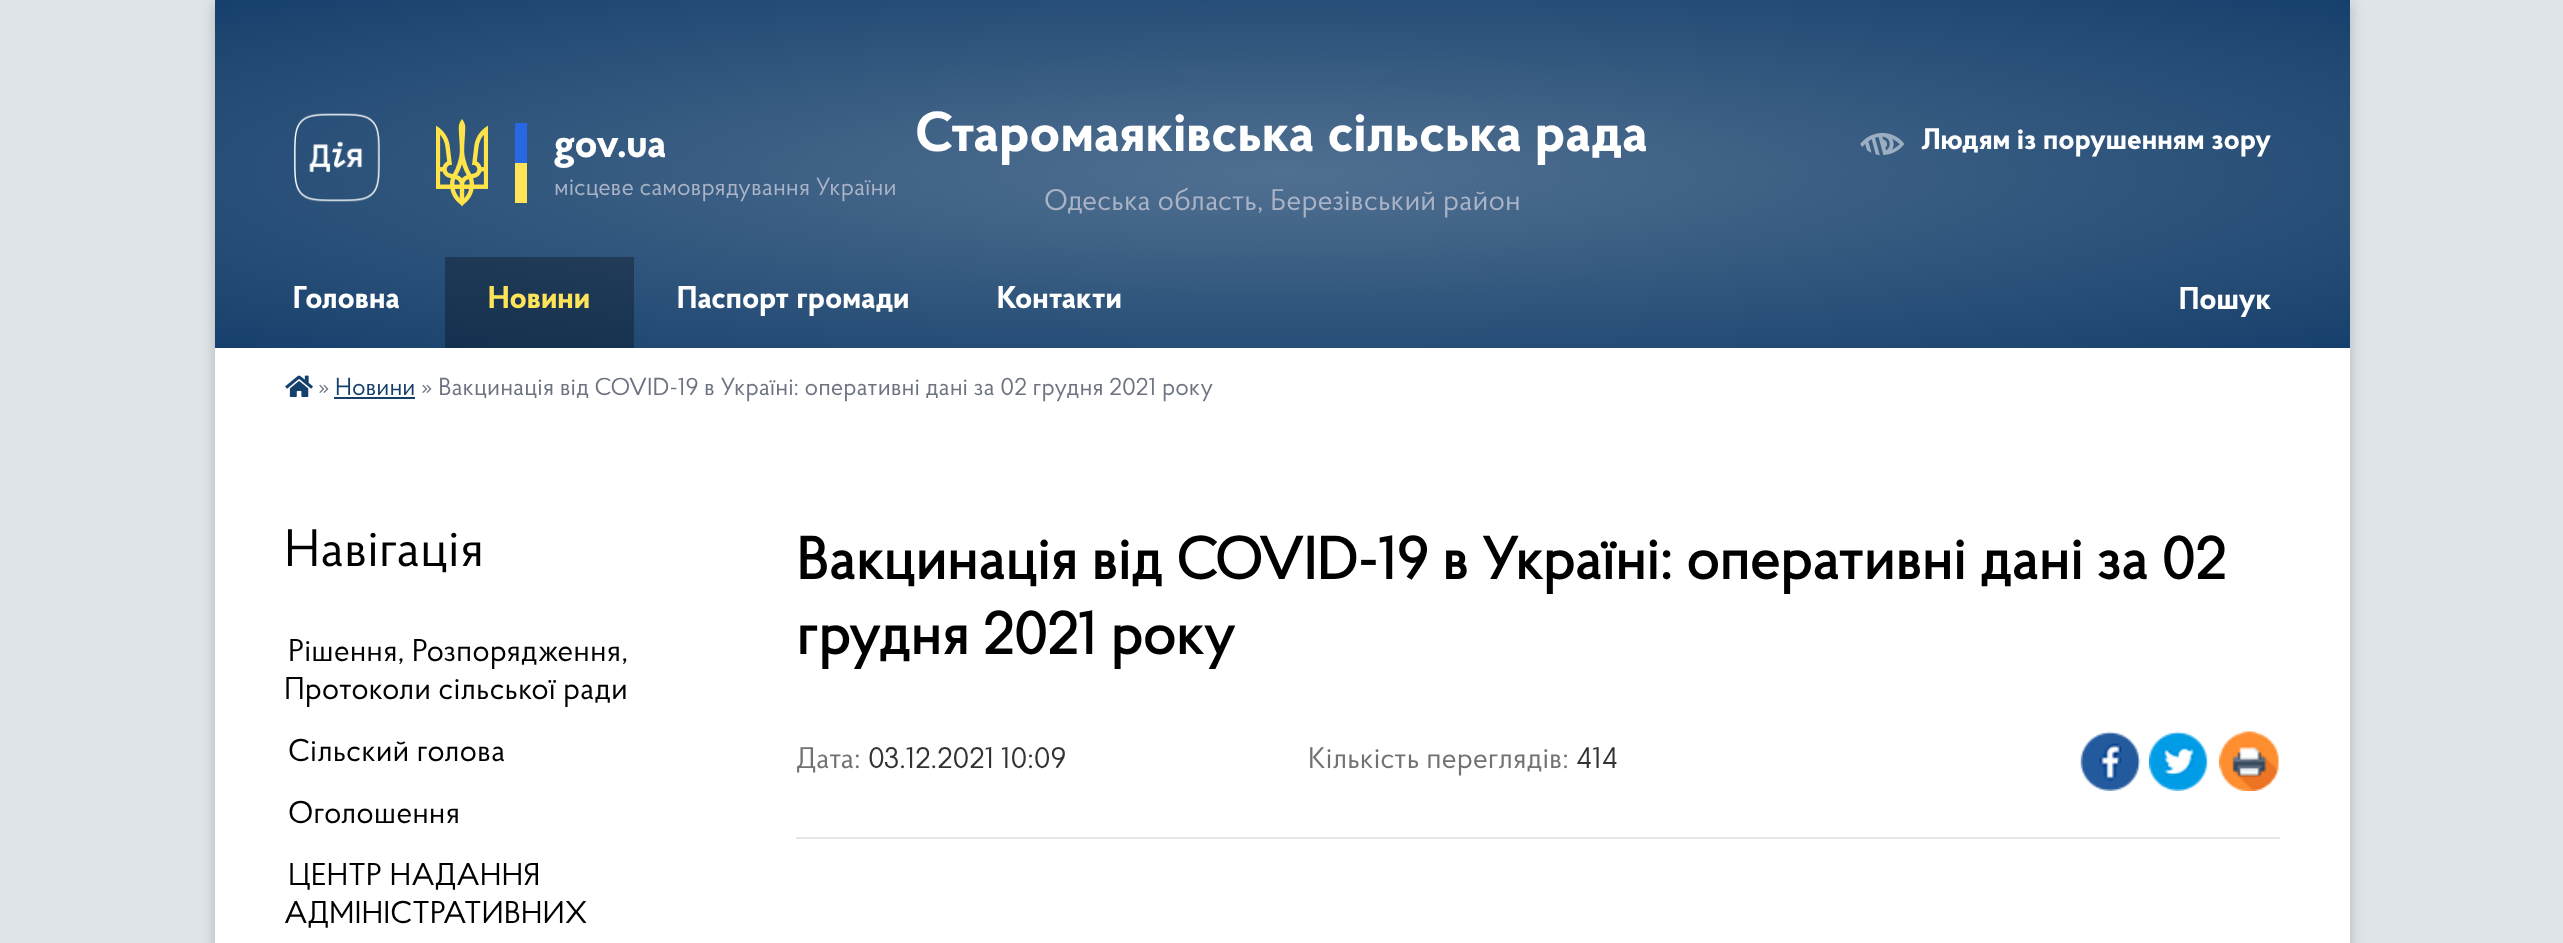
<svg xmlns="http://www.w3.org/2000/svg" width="2563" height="943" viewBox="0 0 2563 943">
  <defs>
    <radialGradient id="g1" gradientUnits="userSpaceOnUse" cx="0" cy="0" r="1" gradientTransform="matrix(1510 0 0 246 1283 174)"><stop offset="0" stop-color="rgb(80,112,145)"/><stop offset="1" stop-color="rgb(22,64,108)"/></radialGradient>
    <radialGradient id="g2" gradientUnits="userSpaceOnUse" cx="0" cy="0" r="1" gradientTransform="matrix(1510 0 0 246 1283 174)"><stop offset="0" stop-color="rgb(56,78,102)"/><stop offset="1" stop-color="rgb(15,45,76)"/></radialGradient>
  </defs>
  <rect width="100%" height="100%" fill="rgb(222,228,231)"/>
  <rect x="215" y="2" width="2135" height="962" fill="rgba(0,0,0,0.2)" filter="blur(7px)"/>
  <rect x="215" y="348" width="2135" height="595" fill="rgb(255,255,255)"/>
  <rect x="215" y="0" width="2135" height="348" fill="url(#g1)"/>
  <rect x="445" y="257" width="189" height="91" fill="url(#g2)"/>
  <image x="294" y="113" width="86" height="89" href="pic1.png"/>
  <image x="436" y="119" width="52" height="88" href="pic2.png"/>
  <rect x="515" y="123" width="12" height="40" fill="rgb(38,105,227)"/>
  <rect x="515" y="163" width="12" height="40" fill="rgb(255,227,88)"/>
  <text x="554" y="157" font-family="'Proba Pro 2'" font-size="42" font-weight="bold" fill="rgb(255,255,255)">gov.ua</text>
  <text x="554" y="195" font-family="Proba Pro" font-size="24.5" fill="rgb(170,179,198)">місцеве самоврядування України</text>
  <text x="915" y="151" font-family="'Proba Pro 2'" font-size="56" font-weight="bold" fill="rgb(255,255,255)">Старомаяківська сільська рада</text>
  <text x="1044" y="210" font-family="Proba Pro" font-size="29.75" fill="rgb(170,179,198)">Одеська область, Березівський район</text>
  <image x="1860" y="133" width="44" height="23" href="pic3.png"/>
  <text x="1921" y="149" font-family="'Proba Pro 2'" font-size="29.75" font-weight="bold" fill="rgb(255,255,255)">Людям із порушенням зору</text>
  <text x="293" y="308" font-family="'Proba Pro 2'" font-size="31.5" font-weight="bold" fill="rgb(255,255,255)">Головна</text>
  <text x="488" y="308" font-family="'Proba Pro 2'" font-size="31.5" font-weight="bold" fill="rgb(255,227,88)">Новини</text>
  <g font-family="'Proba Pro 2'" font-size="31.5" font-weight="bold" fill="rgb(255,255,255)">
    <text x="677" y="308">Паспорт громади</text>
    <text x="997" y="308">Контакти</text>
    <text x="2179" y="309">Пошук</text>
  </g>
  <image x="285" y="375" width="28" height="22" href="pic4.png"/>
  <text x="318" y="395" font-family="Proba Pro" font-size="24.5" fill="rgb(109,115,129)">»</text>
  <text x="335" y="395" font-family="Proba Pro" font-size="24.5" fill="rgb(22,64,108)">Новини</text>
  <rect x="334" y="397" width="81" height="2" fill="rgb(22,64,108)"/>
  <text x="421" y="395" font-family="Proba Pro" font-size="24.5" fill="rgb(109,115,129)">» Вакцинація від COVID-19 в Україні: оперативні дані за 02 грудня 2021 року</text>
  <text x="284" y="566" font-family="Proba Pro" font-size="52.5" fill="rgb(0,0,0)">Навігація</text>
  <g font-family="Proba Pro" font-size="31.5" fill="rgb(0,0,0)">
    <text x="288" y="661">Рішення, Розпорядження,</text>
    <text x="284" y="699">Протоколи сільської ради</text>
    <text>
      <tspan x="288" y="761">Сільский голова</tspan>
      <tspan x="288" y="823">Оголошення</tspan>
      <tspan x="288" y="885">ЦЕНТР НАДАННЯ</tspan>
    </text>
    <text x="284" y="923">АДМІНІСТРАТИВНИХ</text>
  </g>
  <g font-family="Proba Pro" font-size="59.5" font-weight="bold" fill="rgb(0,0,0)">
    <text>
      <tspan x="796" y="579">Вакцинація від COVID-19 в Україні: оперативні дані за 02</tspan>
      <tspan x="796" y="654">грудня 2021 року</tspan>
    </text>
  </g>
  <text x="796" y="768" font-family="Proba Pro" font-size="29.75" fill="rgb(114,114,114)">Дата:</text>
  <text x="868" y="768" font-family="Proba Pro" font-size="29.75" fill="rgb(51,51,51)">03.12.2021 10:09</text>
  <text x="1308" y="768" font-family="Proba Pro" font-size="29.75" fill="rgb(114,114,114)">Кількість переглядів:</text>
  <text x="1576" y="768" font-family="Proba Pro" font-size="29.75" fill="rgb(51,51,51)">414</text>
  <image x="2080" y="731" width="61" height="60" href="pic5.png"/>
  <image x="2149" y="731" width="59" height="60" href="pic6.png"/>
  <image x="2219" y="731" width="60" height="60" href="pic7.png"/>
  <rect x="796" y="837" width="1484" height="2" fill="rgb(229,229,229)"/>
</svg>
